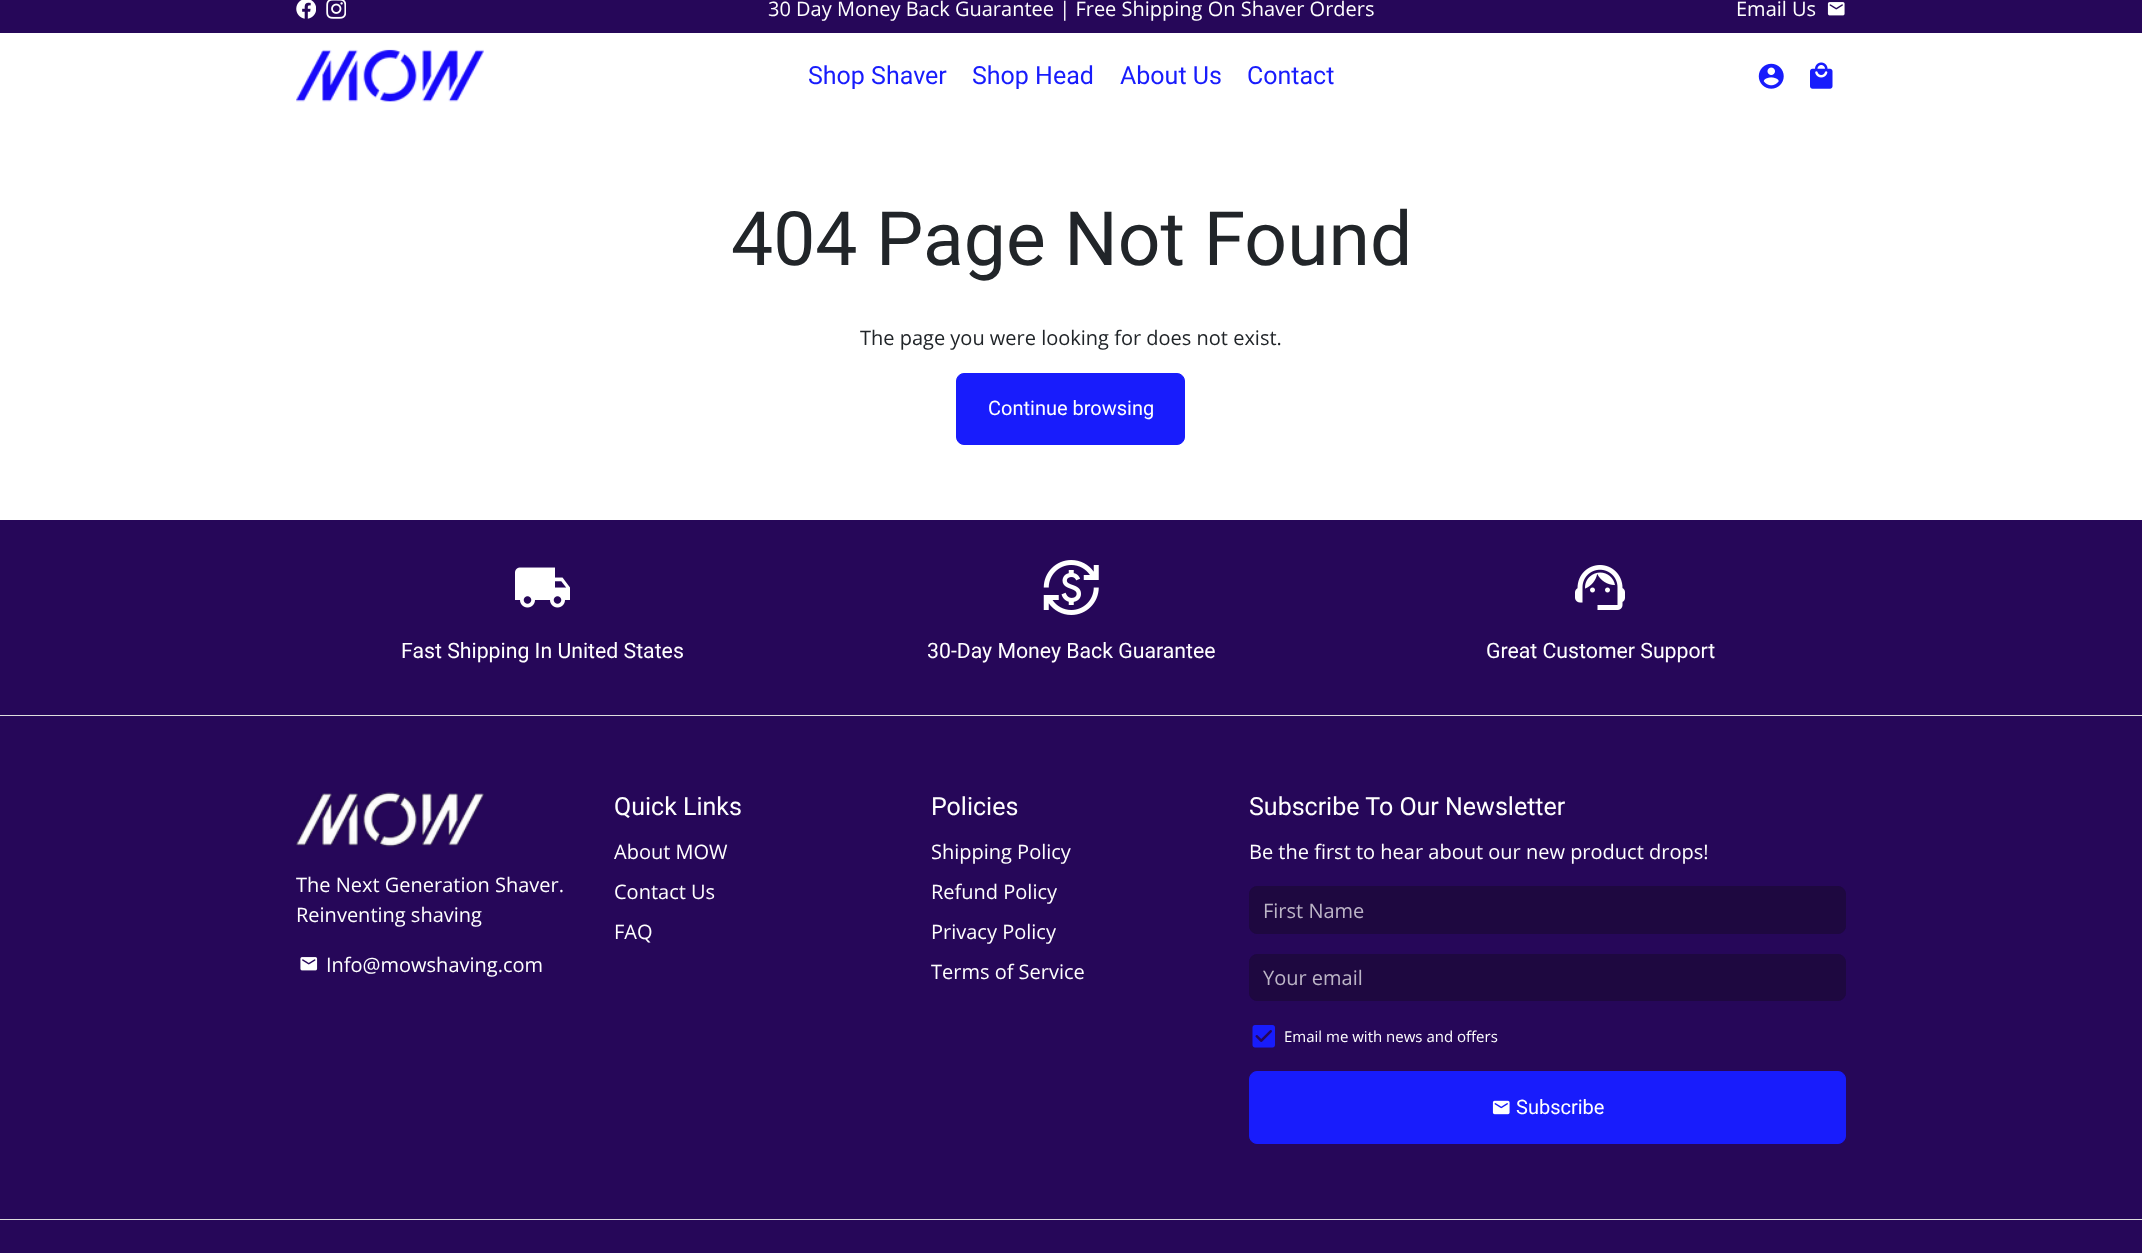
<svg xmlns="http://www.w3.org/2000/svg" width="2142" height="1253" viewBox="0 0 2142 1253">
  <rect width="100%" height="100%" fill="rgb(255,255,255)"/>
  <rect x="0" y="0" width="2142" height="33" fill="rgb(38,7,89)"/>
  <image x="296" y="0" width="20" height="19" href="pic1.png"/>
  <image x="326" y="0" width="20" height="19" href="pic2.png"/>
  <g font-family="Open Sans" font-size="20" fill="rgb(255,255,255)">
    <text x="768" y="16">30 Day Money Back Guarantee | Free Shipping On Shaver Orders</text>
    <text x="1736" y="16">Email Us</text>
  </g>
  <image x="1827" y="2" width="18" height="14" href="pic3.png"/>
  <image x="296" y="49" width="188" height="53" href="pic4.png"/>
  <g font-family="Roboto" font-size="25" fill="rgb(24,28,252)">
    <text x="808" y="84">Shop Shaver</text>
    <text x="972" y="84">Shop Head</text>
    <text x="1120" y="84">About Us</text>
    <text x="1247" y="84">Contact</text>
  </g>
  <image x="1758" y="63" width="26" height="26" href="pic5.png"/>
  <image x="1810" y="62" width="23" height="27" href="pic6.png"/>
  <text x="731" y="265" font-family="Roboto" font-size="75" fill="rgb(33,37,41)">404 Page Not Found</text>
  <text x="860" y="345" font-family="Open Sans" font-size="20" fill="rgb(33,37,41)">The page you were looking for does not exist.</text>
  <rect x="956.5" y="373.5" width="228" height="71" rx="7.5" fill="rgb(24,28,252)" stroke="rgb(24,28,252)"/>
  <text x="988" y="415" font-family="Roboto" font-size="20" fill="rgb(255,255,255)">Continue browsing</text>
  <rect x="0" y="520" width="2142" height="195" fill="rgb(38,7,89)"/>
  <rect x="0" y="715" width="2142" height="1" fill="rgb(222,222,222)"/>
  <image x="515" y="567" width="55" height="41" href="pic7.png"/>
  <text x="401" y="658" font-family="Roboto" font-size="21.25" fill="rgb(255,255,255)">Fast Shipping In United States</text>
  <image x="1043" y="560" width="56" height="55" href="pic8.png"/>
  <text x="927" y="658" font-family="Roboto" font-size="21.25" fill="rgb(255,255,255)">30-Day Money Back Guarantee</text>
  <image x="1575" y="565" width="50" height="45" href="pic9.png"/>
  <text x="1486" y="658" font-family="Roboto" font-size="21.25" fill="rgb(255,255,255)">Great Customer Support</text>
  <rect x="0" y="716" width="2142" height="537" fill="rgb(38,7,89)"/>
  <image x="296" y="792" width="188" height="55" href="pic10.png"/>
  <g font-family="Open Sans" font-size="20" fill="rgb(255,255,255)">
    <text>
      <tspan x="296" y="892">The Next Generation Shaver.</tspan>
      <tspan x="296" y="922">Reinventing shaving</tspan>
    </text>
  </g>
  <image x="300" y="957" width="18" height="14" href="pic11.png"/>
  <text x="326" y="972" font-family="Open Sans" font-size="20" fill="rgb(255,255,255)">Info@mowshaving.com</text>
  <text x="614" y="815" font-family="Roboto" font-size="25" fill="rgb(255,255,255)">Quick Links</text>
  <g font-family="Open Sans" font-size="20" fill="rgb(255,255,255)">
    <text x="614" y="859">About MOW</text>
    <text x="614" y="899">Contact Us</text>
    <text x="614" y="939">FAQ</text>
  </g>
  <text x="931" y="815" font-family="Roboto" font-size="25" fill="rgb(255,255,255)">Policies</text>
  <g font-family="Open Sans" font-size="20" fill="rgb(255,255,255)">
    <text x="931" y="859">Shipping Policy</text>
    <text x="931" y="899">Refund Policy</text>
    <text x="931" y="939">Privacy Policy</text>
    <text x="931" y="979">Terms of Service</text>
  </g>
  <text x="1249" y="815" font-family="Roboto" font-size="25" fill="rgb(255,255,255)">Subscribe To Our Newsletter</text>
  <text x="1249" y="859" font-family="Open Sans" font-size="20" fill="rgb(255,255,255)">Be the first to hear about our new product drops!</text>
  <rect x="1249.5" y="886.5" width="596" height="47" rx="7.5" fill="rgb(30,8,64)" stroke="rgb(30,8,64)"/>
  <text x="1263" y="918" font-family="Open Sans" font-size="20" fill="rgb(188,181,198)">First Name</text>
  <rect x="1249.5" y="954.5" width="596" height="46" rx="7.5" fill="rgb(30,8,64)" stroke="rgb(30,8,64)"/>
  <text x="1263" y="985" font-family="Open Sans" font-size="20" fill="rgb(188,181,198)">Your email</text>
  <image x="1252" y="1025" width="23" height="23" href="pic12.png"/>
  <text x="1284" y="1042" font-family="Open Sans" font-size="15" fill="rgb(255,255,255)">Email me with news and offers</text>
  <rect x="1249.5" y="1071.5" width="596" height="72" rx="7.5" fill="rgb(24,28,252)" stroke="rgb(24,28,252)"/>
  <image x="1492" y="1100" width="18" height="15" href="pic13.png"/>
  <text x="1516" y="1114" font-family="Roboto" font-size="20" fill="rgb(255,255,255)">Subscribe</text>
  <rect x="0" y="1219" width="2142" height="1" fill="rgb(222,222,222)"/>
</svg>
